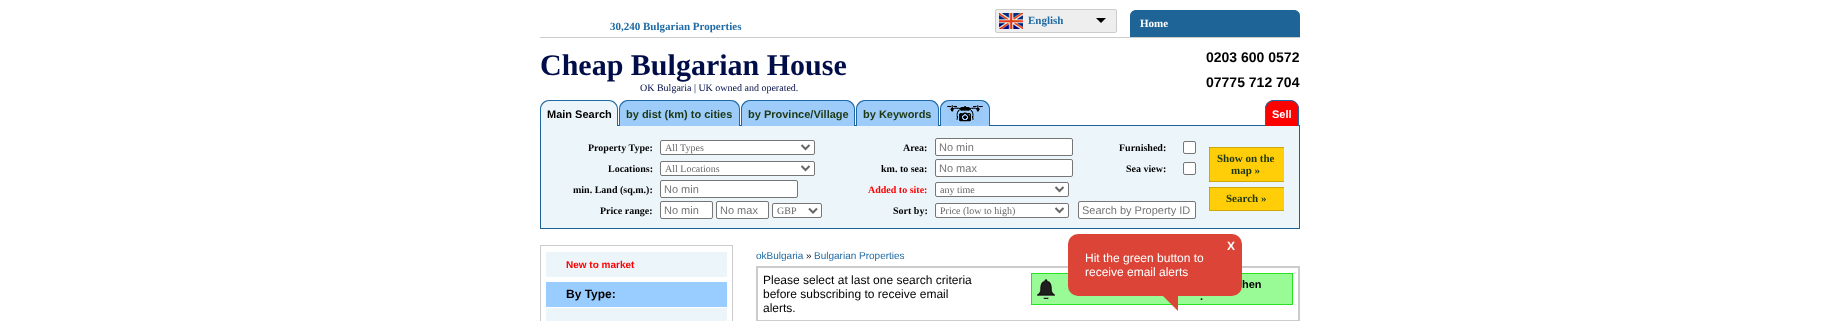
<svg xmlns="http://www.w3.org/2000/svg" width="1839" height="321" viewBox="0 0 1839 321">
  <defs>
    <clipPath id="clip1"><rect x="1082" y="204" width="110" height="12"/></clipPath>
  </defs>
  <rect width="100%" height="100%" fill="rgb(255,255,255)"/>
  <rect x="540" y="37" width="760" height="1" fill="rgb(204,204,204)"/>
  <text x="610" y="30" font-family="Liberation Serif" font-size="11" font-weight="bold" fill="rgb(32,107,164)">30,240 Bulgarian Properties</text>
  <rect x="995.5" y="9.5" width="121" height="23" rx="1.5" fill="rgb(238,238,238)" stroke="rgb(204,204,204)"/>
  <image x="999" y="13" width="24" height="16" href="pic1.png"/>
  <text x="1028" y="24" font-family="Liberation Serif" font-size="11" font-weight="bold" fill="rgb(32,107,164)">English</text>
  <path d="M1096 18H1106L1101 23Z" fill="rgb(0,0,0)"/>
  <path d="M1136 10H1294C1297.5 10 1300 12.5 1300 16V37H1130V16C1130 12.5 1132.5 10 1136 10Z" fill="rgb(30,100,151)"/>
  <text x="1140" y="27" font-family="Liberation Serif" font-size="11" font-weight="bold" fill="rgb(255,255,255)">Home</text>
  <text x="540" y="75" font-family="Liberation Serif" font-size="30" font-weight="bold" fill="rgb(0,13,73)">Cheap Bulgarian House</text>
  <text x="640" y="91" font-family="Liberation Serif" font-size="10" fill="rgb(0,13,73)">OK Bulgaria | UK owned and operated.</text>
  <g font-family="Liberation Sans" font-size="14" font-weight="bold" fill="rgb(0,0,0)">
    <text>
      <tspan x="1206" y="62">0203 600 0572</tspan>
      <tspan x="1206" y="87">07775 712 704</tspan>
    </text>
  </g>
  <rect x="540.5" y="125.5" width="759" height="103" fill="rgb(236,245,250)" stroke="rgb(29,96,149)"/>
  <path d="M549 100H609C614 100 618 104 618 109V126H540V109C540 104 544 100 549 100Z" fill="rgb(236,245,250)"/>
  <path d="M549 100H609C614 100 618 104 618 109V126H540V109C540 104 544 100 549 100ZM549 101H609C613 101 617 105 617 109V126H541V109C541 105 545 101 549 101Z" fill="rgb(30,105,163)" fill-rule="evenodd"/>
  <text x="547" y="118" font-family="Liberation Sans" font-size="11" font-weight="bold" fill="rgb(0,0,0)">Main Search</text>
  <path d="M628 100H731C736 100 740 104 740 109V126H619V109C619 104 623 100 628 100Z" fill="rgb(157,204,250)"/>
  <path d="M628 100H731C736 100 740 104 740 109V126H619V109C619 104 623 100 628 100ZM628 101H731C735 101 739 105 739 109V126H620V109C620 105 624 101 628 101Z" fill="rgb(30,105,163)" fill-rule="evenodd"/>
  <text x="626" y="118" font-family="Liberation Sans" font-size="11" font-weight="bold" fill="rgb(29,56,19)">by dist (km) to cities</text>
  <path d="M750 100H846C851 100 855 104 855 109V126H741V109C741 104 745 100 750 100Z" fill="rgb(157,204,250)"/>
  <path d="M750 100H846C851 100 855 104 855 109V126H741V109C741 104 745 100 750 100ZM750 101H846C850 101 854 105 854 109V126H742V109C742 105 746 101 750 101Z" fill="rgb(30,105,163)" fill-rule="evenodd"/>
  <text x="748" y="118" font-family="Liberation Sans" font-size="11" font-weight="bold" fill="rgb(29,56,19)">by Province/Village</text>
  <path d="M865 100H930C935 100 939 104 939 109V126H856V109C856 104 860 100 865 100Z" fill="rgb(157,204,250)"/>
  <path d="M865 100H930C935 100 939 104 939 109V126H856V109C856 104 860 100 865 100ZM865 101H930C934 101 938 105 938 109V126H857V109C857 105 861 101 865 101Z" fill="rgb(30,105,163)" fill-rule="evenodd"/>
  <text x="863" y="118" font-family="Liberation Sans" font-size="11" font-weight="bold" fill="rgb(29,56,19)">by Keywords</text>
  <path d="M949 100H981C986 100 990 104 990 109V126H940V109C940 104 944 100 949 100Z" fill="rgb(157,204,250)"/>
  <image x="947" y="103" width="36" height="20" href="pic2.png"/>
  <path d="M949 100H981C986 100 990 104 990 109V126H940V109C940 104 944 100 949 100ZM949 101H981C985 101 989 105 989 109V126H941V109C941 105 945 101 949 101Z" fill="rgb(30,105,163)" fill-rule="evenodd"/>
  <path d="M1274 100H1290C1295 100 1299 104 1299 109V126H1265V109C1265 104 1269 100 1274 100Z" fill="rgb(255,0,0)"/>
  <path d="M1274 100H1290C1295 100 1299 104 1299 109V126H1265V109C1265 104 1269 100 1274 100ZM1274 101H1290C1294.5 101 1298 104.5 1298 109V126H1266V109C1266 104.5 1269.5 101 1274 101Z" fill="rgb(30,105,163)" fill-rule="evenodd"/>
  <text x="1272" y="118" font-family="Liberation Sans" font-size="11" font-weight="bold" fill="rgb(255,255,255)">Sell</text>
  <text x="588" y="151" font-family="Liberation Serif" font-size="10" font-weight="bold" fill="rgb(0,0,0)">Property Type:</text>
  <rect x="660.5" y="140.5" width="154" height="14" rx="1.5" fill="rgb(255,255,255)" stroke="rgb(118,118,118)"/>
  <path d="M801.5 145L805.5 149L809.5 145" fill="none" stroke="rgb(102,102,102)" stroke-width="2"/>
  <text x="665" y="151" font-family="Liberation Serif" font-size="10" fill="rgb(102,102,102)">All Types</text>
  <text x="903" y="151" font-family="Liberation Serif" font-size="10" font-weight="bold" fill="rgb(0,0,0)">Area:</text>
  <rect x="935.5" y="138.5" width="137" height="17" rx="1.5" fill="rgb(255,255,255)" stroke="rgb(118,118,118)"/>
  <text x="939" y="151" font-family="Liberation Sans" font-size="11" fill="rgb(117,117,117)">No min</text>
  <text x="1119" y="151" font-family="Liberation Serif" font-size="10" font-weight="bold" fill="rgb(0,0,0)">Furnished:</text>
  <rect x="1183.5" y="141.5" width="12" height="12" rx="1.5" fill="rgb(255,255,255)" stroke="rgb(118,118,118)"/>
  <image x="1209" y="147" width="75" height="35" href="pic3.png"/>
  <g font-family="Liberation Serif" font-size="11" font-weight="bold" fill="rgb(29,56,19)">
    <text x="1217" y="162">Show on the</text>
    <text x="1231" y="174">map »</text>
  </g>
  <image x="1209" y="187" width="75" height="23" href="pic4.png"/>
  <rect x="1209" y="210" width="75" height="1" fill="rgb(207,167,6)"/>
  <text x="1226" y="202" font-family="Liberation Serif" font-size="11" font-weight="bold" fill="rgb(29,56,19)">Search »</text>
  <text x="608" y="172" font-family="Liberation Serif" font-size="10" font-weight="bold" fill="rgb(0,0,0)">Locations:</text>
  <rect x="660.5" y="161.5" width="154" height="14" rx="1.5" fill="rgb(255,255,255)" stroke="rgb(118,118,118)"/>
  <path d="M801.5 166L805.5 170L809.5 166" fill="none" stroke="rgb(102,102,102)" stroke-width="2"/>
  <text x="665" y="172" font-family="Liberation Serif" font-size="10" fill="rgb(102,102,102)">All Locations</text>
  <text x="881" y="172" font-family="Liberation Serif" font-size="10" font-weight="bold" fill="rgb(0,0,0)">km. to sea:</text>
  <rect x="935.5" y="159.5" width="137" height="17" rx="1.5" fill="rgb(255,255,255)" stroke="rgb(118,118,118)"/>
  <text x="939" y="172" font-family="Liberation Sans" font-size="11" fill="rgb(117,117,117)">No max</text>
  <text x="1126" y="172" font-family="Liberation Serif" font-size="10" font-weight="bold" fill="rgb(0,0,0)">Sea view:</text>
  <rect x="1183.5" y="162.5" width="12" height="12" rx="1.5" fill="rgb(255,255,255)" stroke="rgb(118,118,118)"/>
  <text x="573" y="193" font-family="Liberation Serif" font-size="10" font-weight="bold" fill="rgb(0,0,0)">min. Land (sq.m.):</text>
  <rect x="660.5" y="180.5" width="137" height="17" rx="1.5" fill="rgb(255,255,255)" stroke="rgb(118,118,118)"/>
  <text x="664" y="193" font-family="Liberation Sans" font-size="11" fill="rgb(117,117,117)">No min</text>
  <text x="868" y="193" font-family="Liberation Serif" font-size="10" font-weight="bold" fill="rgb(255,0,0)">Added to site:</text>
  <rect x="935.5" y="182.5" width="133" height="14" rx="1.5" fill="rgb(255,255,255)" stroke="rgb(118,118,118)"/>
  <path d="M1055.5 187L1059.5 191L1063.5 187" fill="none" stroke="rgb(102,102,102)" stroke-width="2"/>
  <text x="940" y="193" font-family="Liberation Serif" font-size="10" fill="rgb(102,102,102)">any time</text>
  <text x="600" y="214" font-family="Liberation Serif" font-size="10" font-weight="bold" fill="rgb(0,0,0)">Price range:</text>
  <rect x="660.5" y="201.5" width="52" height="17" rx="1.5" fill="rgb(255,255,255)" stroke="rgb(118,118,118)"/>
  <text x="664" y="214" font-family="Liberation Sans" font-size="11" fill="rgb(117,117,117)">No min</text>
  <rect x="716.5" y="201.5" width="52" height="17" rx="1.5" fill="rgb(255,255,255)" stroke="rgb(118,118,118)"/>
  <text x="720" y="214" font-family="Liberation Sans" font-size="11" fill="rgb(117,117,117)">No max</text>
  <rect x="772.5" y="203.5" width="49" height="14" rx="1.5" fill="rgb(255,255,255)" stroke="rgb(118,118,118)"/>
  <path d="M809 208.5L813 212.5L817 208.5" fill="none" stroke="rgb(102,102,102)" stroke-width="2"/>
  <text x="777" y="214" font-family="Liberation Serif" font-size="10" fill="rgb(102,102,102)">GBP</text>
  <text x="893" y="214" font-family="Liberation Serif" font-size="10" font-weight="bold" fill="rgb(0,0,0)">Sort by:</text>
  <rect x="935.5" y="203.5" width="133" height="14" rx="1.5" fill="rgb(255,255,255)" stroke="rgb(118,118,118)"/>
  <path d="M1055.5 208L1059.5 212L1063.5 208" fill="none" stroke="rgb(102,102,102)" stroke-width="2"/>
  <text x="940" y="214" font-family="Liberation Serif" font-size="10" fill="rgb(102,102,102)">Price (low to high)</text>
  <rect x="1078.5" y="201.5" width="117" height="17" rx="1.5" fill="rgb(255,255,255)" stroke="rgb(118,118,118)"/>
  <g clip-path="url(#clip1)">
    <text x="1082" y="214" font-family="Liberation Sans" font-size="11" fill="rgb(117,117,117)">Search by Property ID</text>
  </g>
  <rect x="757" y="267" width="542" height="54" fill="none" stroke="rgb(204,204,204)" stroke-width="2"/>
  <rect x="1031.5" y="273.5" width="261" height="31" fill="rgb(153,251,150)" stroke="rgb(41,225,35)"/>
  <rect x="1068" y="234" width="174" height="62" rx="10" fill="rgb(219,68,55)"/>
  <text x="1227" y="250" font-family="Liberation Sans" font-size="12" font-weight="bold" fill="rgb(255,255,255)">X</text>
  <g font-family="Liberation Sans" font-size="12" fill="rgb(255,255,255)">
    <text>
      <tspan x="1085" y="262">Hit the green button to</tspan>
      <tspan x="1085" y="276">receive email alerts</tspan>
    </text>
  </g>
  <path d="M1178 281V311L1163 296Z" fill="rgb(219,68,55)"/>
  <rect x="540.5" y="245.5" width="192" height="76" fill="none" stroke="rgb(204,204,204)"/>
  <rect x="546" y="252" width="181" height="25" fill="rgb(236,245,250)"/>
  <text x="566" y="268" font-family="Liberation Sans" font-size="10" font-weight="bold" fill="rgb(255,0,0)">New to market</text>
  <rect x="546" y="282" width="181" height="25" fill="rgb(153,205,255)"/>
  <text x="566" y="298" font-family="Liberation Sans" font-size="12" font-weight="bold" fill="rgb(0,0,0)">By Type:</text>
  <rect x="546" y="308" width="181" height="13" fill="rgb(236,245,250)"/>
  <text x="756" y="259" font-family="Liberation Sans" font-size="10" fill="rgb(32,107,164)">okBulgaria</text>
  <text x="806" y="259" font-family="Liberation Sans" font-size="10" fill="rgb(0,0,0)">»</text>
  <text x="814" y="259" font-family="Liberation Sans" font-size="10" fill="rgb(32,107,164)">Bulgarian Properties</text>
  <g font-family="Liberation Sans" font-size="12" fill="rgb(0,0,0)">
    <text>
      <tspan x="763" y="284">Please select at last one search criteria</tspan>
      <tspan x="763" y="298">before subscribing to receive email</tspan>
      <tspan x="763" y="312">alerts.</tspan>
    </text>
  </g>
  <image x="1037" y="279" width="18" height="20" href="pic5.png"/>
  <g font-family="Liberation Sans" font-size="11" font-weight="bold" fill="rgb(0,0,0)">
    <text x="1242" y="288">hen</text>
    <text x="1200" y="300">.</text>
  </g>
</svg>
